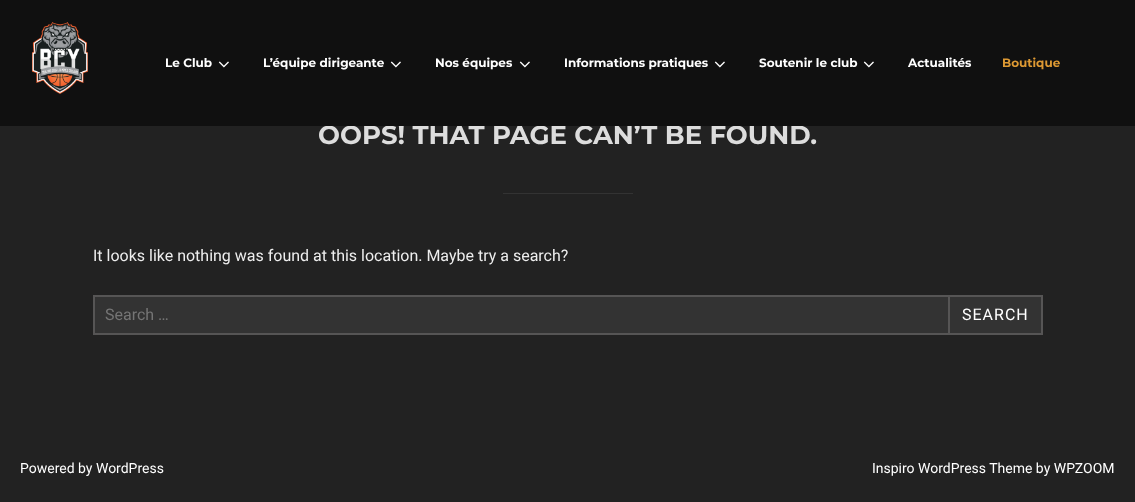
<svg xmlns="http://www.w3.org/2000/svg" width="1135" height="502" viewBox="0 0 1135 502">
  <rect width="100%" height="100%" fill="rgb(34,34,34)"/>
  <text x="318" y="144" font-family="Montserrat" font-size="26" font-weight="bold" fill="rgb(221,221,221)">OOPS! THAT PAGE CAN’T BE FOUND.</text>
  <rect x="0" y="0" width="1135" height="126" fill="rgb(16,16,16)"/>
  <image x="32" y="22" width="56" height="72" href="pic1.png"/>
  <text x="165" y="67" font-family="Montserrat" font-size="12" font-weight="bold" fill="rgb(255,255,255)">Le Club</text>
  <image x="218" y="61" width="11" height="7" href="pic2.png"/>
  <text x="263" y="67" font-family="Montserrat" font-size="12" font-weight="bold" fill="rgb(255,255,255)">L’équipe dirigeante</text>
  <image x="390" y="61" width="11" height="7" href="pic2.png"/>
  <text x="435" y="67" font-family="Montserrat" font-size="12" font-weight="bold" fill="rgb(255,255,255)">Nos équipes</text>
  <image x="519" y="61" width="11" height="7" href="pic2.png"/>
  <text x="564" y="67" font-family="Montserrat" font-size="12" font-weight="bold" fill="rgb(255,255,255)">Informations pratiques</text>
  <image x="714" y="61" width="11" height="7" href="pic2.png"/>
  <text x="759" y="67" font-family="Montserrat" font-size="12" font-weight="bold" fill="rgb(255,255,255)">Soutenir le club</text>
  <image x="863" y="61" width="11" height="7" href="pic2.png"/>
  <text x="908" y="67" font-family="Montserrat" font-size="12" font-weight="bold" fill="rgb(255,255,255)">Actualités</text>
  <text x="1002" y="67" font-family="Montserrat" font-size="12" font-weight="bold" fill="rgb(221,153,51)">Boutique</text>
  <rect x="503" y="193" width="130" height="1" fill="rgb(51,51,51)"/>
  <text x="93" y="261" font-family="Roboto" font-size="16" fill="rgb(238,238,238)">It looks like nothing was found at this location. Maybe try a search?</text>
  <rect x="94" y="296" width="948" height="38" fill="rgb(51,51,51)" stroke="rgb(86,85,85)" stroke-width="2"/>
  <text x="105" y="320" font-family="Roboto" font-size="16" fill="rgb(117,117,117)">Search …</text>
  <rect x="949" y="296" width="93" height="38" fill="none" stroke="rgb(86,85,85)" stroke-width="2"/>
  <text x="962" y="320" font-family="Roboto" font-size="16" letter-spacing="1" fill="rgb(255,255,255)">SEARCH</text>
  <g font-family="Roboto" font-size="14" fill="rgb(255,255,255)">
    <text x="20" y="473">Powered by WordPress</text>
    <text x="872" y="473">Inspiro WordPress Theme by WPZOOM</text>
  </g>
</svg>
